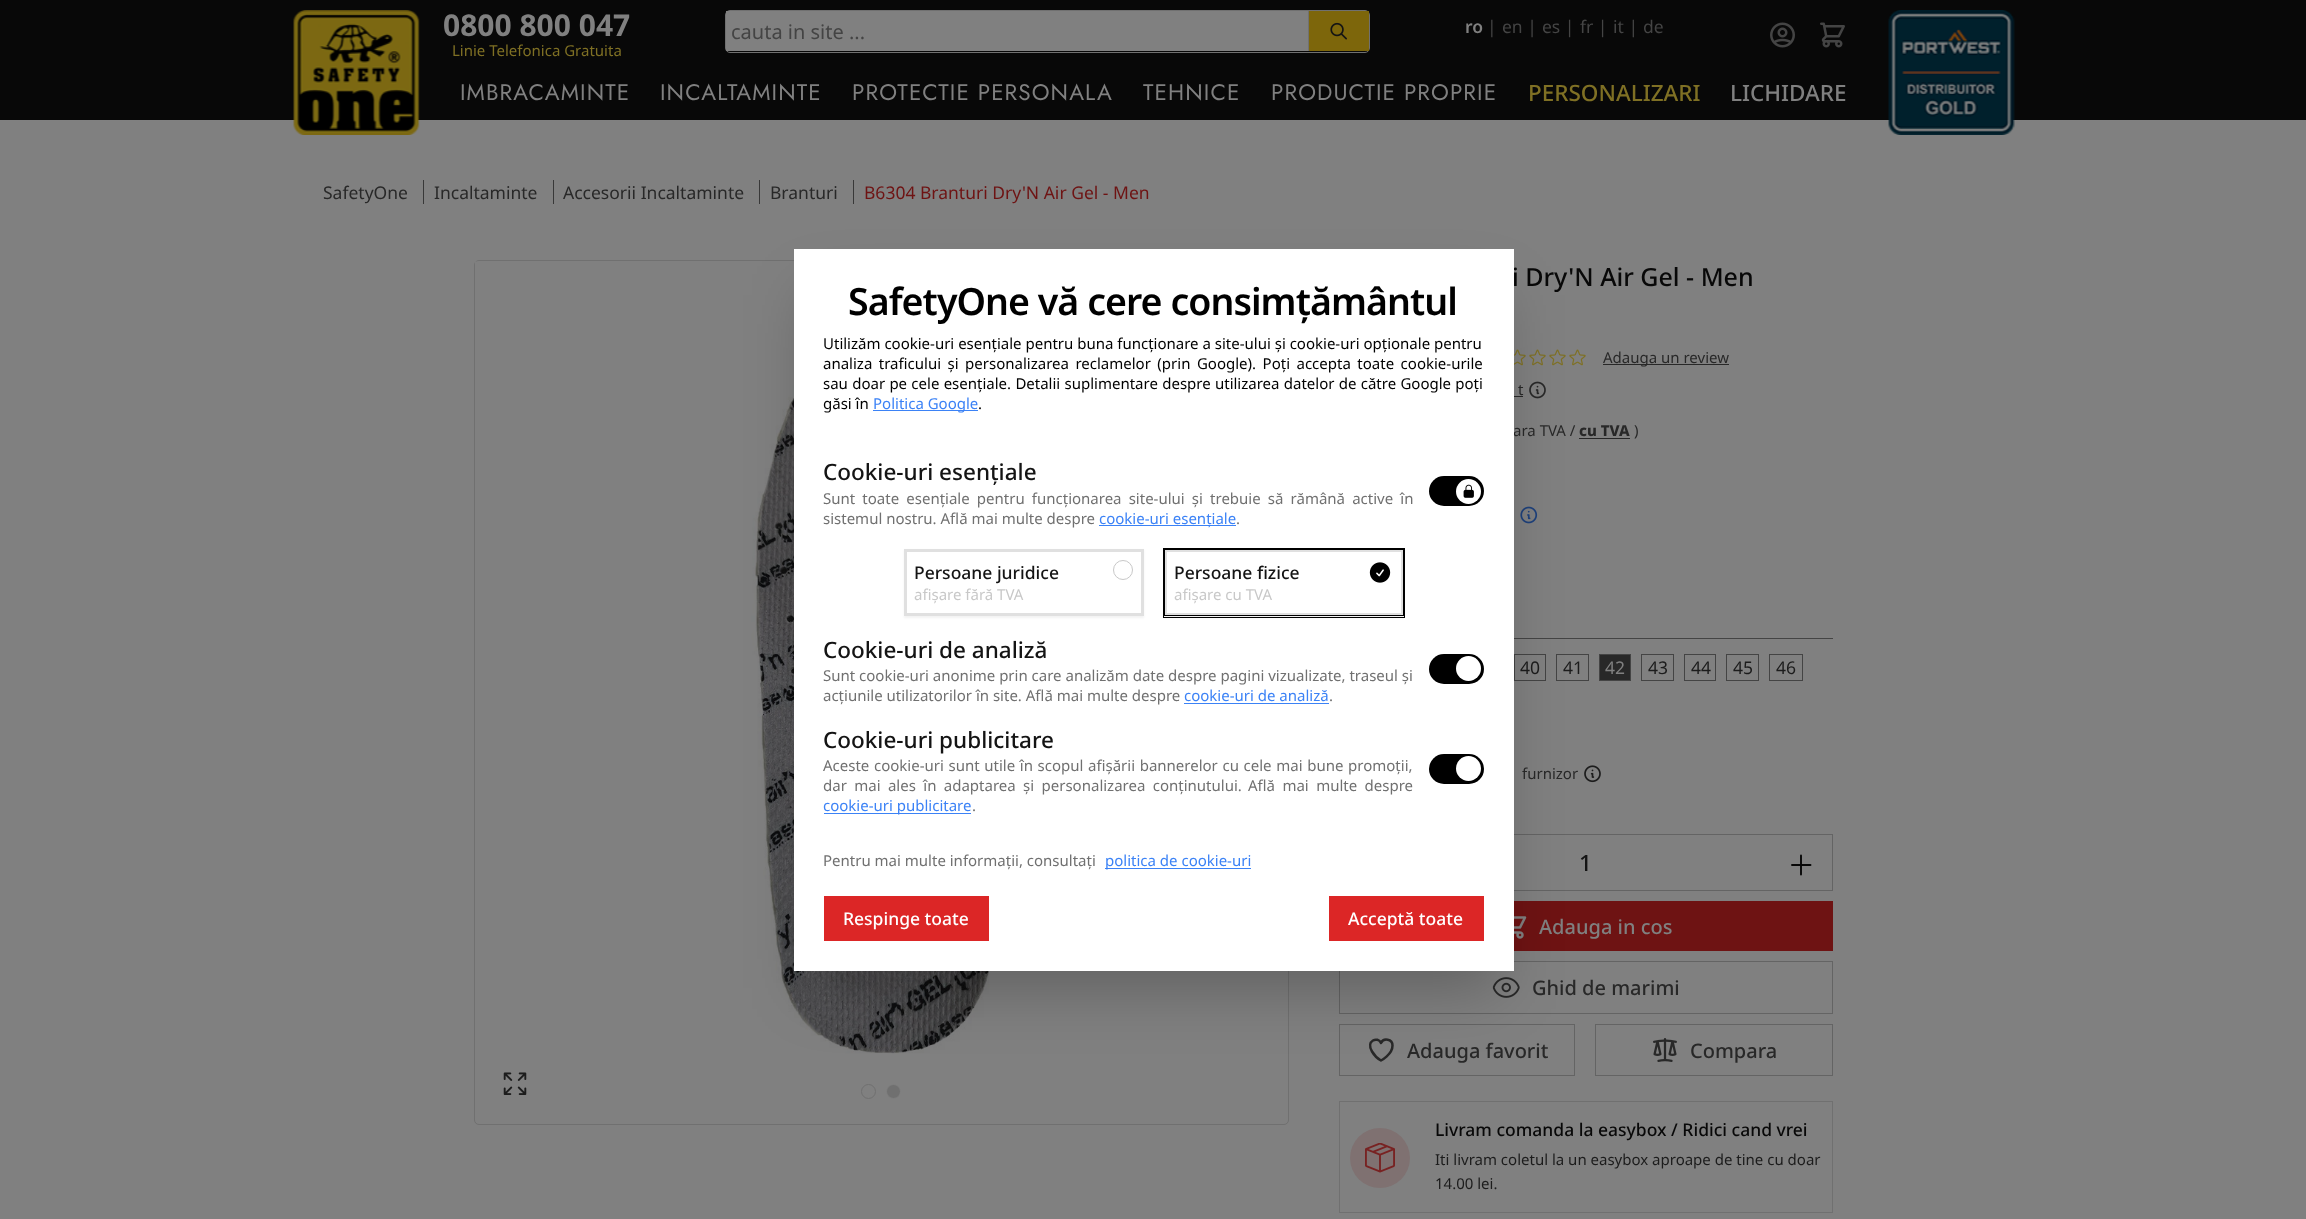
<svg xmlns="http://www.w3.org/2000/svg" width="2306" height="1219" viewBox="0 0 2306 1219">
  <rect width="100%" height="100%" fill="rgb(128,128,128)"/>
  <rect x="0" y="0" width="2306" height="120" fill="rgb(8,8,8)"/>
  <image x="293" y="10" width="127" height="125" href="pic1.png"/>
  <text x="443" y="36" font-family="Noto Sans" font-size="30" font-weight="bold" fill="rgb(128,128,128)">0800 800 047</text>
  <text x="452" y="56" font-family="Noto Sans" font-size="15" fill="rgb(127,112,36)">Linie Telefonica Gratuita</text>
  <rect x="725.5" y="10.5" width="644" height="42" rx="4.5" fill="none" stroke="rgb(112,112,112)"/>
  <rect x="726" y="11" width="582" height="40" fill="rgb(128,128,128)"/>
  <text x="731" y="39" font-family="Noto Sans" font-size="20" fill="rgb(68,68,68)">cauta in site ...</text>
  <rect x="1309" y="11" width="60" height="40" fill="rgb(125,102,11)"/>
  <rect x="1308" y="11" width="1" height="40" fill="rgb(112,112,112)"/>
  <image x="1330" y="22" width="17" height="18" href="pic2.png"/>
  <text x="1465" y="33" font-family="Noto Sans" font-size="17.5" font-weight="600" fill="rgb(128,128,128)">ro</text>
  <g font-family="Noto Sans" font-size="17.5" fill="rgb(68,68,68)">
    <text x="1487" y="33">|</text>
    <text x="1502" y="33">en |</text>
    <text x="1542" y="33">es |</text>
    <text x="1580" y="33">fr |</text>
    <text x="1613" y="33">it |</text>
    <text x="1643" y="33">de</text>
  </g>
  <image x="1770" y="22" width="25" height="26" href="pic3.png"/>
  <image x="1820" y="22" width="25" height="26" href="pic4.png"/>
  <g font-family="Jost" font-size="22.5" letter-spacing="1.1" fill="rgb(128,128,128)">
    <text x="460" y="100">IMBRACAMINTE</text>
    <text x="660" y="100">INCALTAMINTE</text>
    <text x="852" y="100">PROTECTIE PERSONALA</text>
    <text x="1143" y="100">TEHNICE</text>
    <text x="1271" y="100">PRODUCTIE PROPRIE</text>
  </g>
  <text x="1528" y="101" font-family="Noto Sans" font-size="22.5" font-weight="500" fill="rgb(127,112,36)">PERSONALIZARI</text>
  <text x="1730" y="101" font-family="Noto Sans" font-size="22.5" font-weight="500" fill="rgb(128,128,128)">LICHIDARE</text>
  <image x="1888" y="10" width="127" height="125" href="pic5.png"/>
  <g font-family="Noto Sans" font-size="17.5" fill="rgb(40,40,40)">
    <text x="323" y="199">SafetyOne</text>
    <text x="434" y="199">Incaltaminte</text>
  </g>
  <rect x="423" y="180" width="1" height="24" fill="rgb(56,56,56)"/>
  <text x="563" y="199" font-family="Noto Sans" font-size="17.5" fill="rgb(40,40,40)">Accesorii Incaltaminte</text>
  <rect x="553" y="180" width="1" height="24" fill="rgb(56,56,56)"/>
  <text x="770" y="199" font-family="Noto Sans" font-size="17.5" fill="rgb(40,40,40)">Branturi</text>
  <rect x="759" y="180" width="1" height="24" fill="rgb(56,56,56)"/>
  <text x="864" y="199" font-family="Noto Sans" font-size="17.5" fill="rgb(110,19,19)">B6304 Branturi Dry'N Air Gel - Men</text>
  <rect x="853" y="180" width="1" height="24" fill="rgb(56,56,56)"/>
  <rect x="474.5" y="260.5" width="814" height="864" rx="4.5" fill="none" stroke="rgb(112,112,112)"/>
  <image x="475" y="261" width="813" height="793" href="pic6.png"/>
  <image x="503" y="1072" width="24" height="23" href="pic7.png"/>
  <circle cx="868.5" cy="1091.5" r="7" fill="none" stroke="rgb(112,112,112)"/>
  <circle cx="893.5" cy="1091.5" r="7" fill="rgb(112,112,112)" stroke="rgb(128,128,128)"/>
  <text x="1512" y="286" font-family="Noto Sans" font-size="25" font-weight="500" fill="rgb(8,8,8)">i Dry'N Air Gel - Men</text>
  <image x="1514" y="349" width="12" height="17" href="pic8.png"/>
  <image x="1529" y="349" width="17" height="17" href="pic9.png"/>
  <image x="1549" y="349" width="17" height="17" href="pic9.png"/>
  <image x="1569" y="349" width="17" height="17" href="pic9.png"/>
  <rect x="1603" y="364" width="126" height="1" fill="rgb(40,40,40)"/>
  <g font-family="Noto Sans" font-size="15" fill="rgb(40,40,40)">
    <text x="1603" y="363">Adauga un review</text>
    <text x="1518" y="395">t</text>
  </g>
  <rect x="1514" y="396" width="9" height="1" fill="rgb(40,40,40)"/>
  <image x="1529" y="381" width="17" height="18" href="pic10.png"/>
  <text x="1513" y="436" font-family="Noto Sans" font-size="15" fill="rgb(40,40,40)">ara TVA /</text>
  <text x="1579" y="436" font-family="Noto Sans" font-size="15" font-weight="800" fill="rgb(40,40,40)">cu TVA</text>
  <rect x="1579" y="438" width="51" height="1" fill="rgb(40,40,40)"/>
  <text x="1634" y="436" font-family="Noto Sans" font-size="15" fill="rgb(40,40,40)">)</text>
  <image x="1520" y="506" width="18" height="18" href="pic11.png"/>
  <rect x="1514" y="638" width="319" height="1" fill="rgb(68,68,68)"/>
  <rect x="1514.5" y="654.5" width="31" height="26" fill="none" stroke="rgb(68,68,68)"/>
  <text x="1520" y="674" font-family="Noto Sans" font-size="17.5" fill="rgb(28,28,28)">40</text>
  <rect x="1556.5" y="654.5" width="32" height="26" fill="none" stroke="rgb(68,68,68)"/>
  <text x="1563" y="674" font-family="Noto Sans" font-size="17.5" fill="rgb(28,28,28)">41</text>
  <rect x="1599.5" y="654.5" width="31" height="26" fill="rgb(40,40,40)" stroke="rgb(68,68,68)"/>
  <text x="1605" y="674" font-family="Noto Sans" font-size="17.5" fill="rgb(128,128,128)">42</text>
  <rect x="1641.5" y="654.5" width="32" height="26" fill="none" stroke="rgb(68,68,68)"/>
  <text x="1648" y="674" font-family="Noto Sans" font-size="17.5" fill="rgb(28,28,28)">43</text>
  <rect x="1684.5" y="654.5" width="31" height="26" fill="none" stroke="rgb(68,68,68)"/>
  <text x="1691" y="674" font-family="Noto Sans" font-size="17.5" fill="rgb(28,28,28)">44</text>
  <rect x="1726.5" y="654.5" width="32" height="26" fill="none" stroke="rgb(68,68,68)"/>
  <text x="1733" y="674" font-family="Noto Sans" font-size="17.5" fill="rgb(28,28,28)">45</text>
  <rect x="1769.5" y="654.5" width="33" height="26" fill="none" stroke="rgb(68,68,68)"/>
  <text x="1776" y="674" font-family="Noto Sans" font-size="17.5" fill="rgb(28,28,28)">46</text>
  <text x="1522" y="779" font-family="Noto Sans" font-size="15" fill="rgb(40,40,40)">furnizor</text>
  <image x="1584" y="765" width="17" height="18" href="pic12.png"/>
  <rect x="1339.5" y="834.5" width="493" height="56" fill="none" stroke="rgb(100,100,100)"/>
  <text x="1579" y="871" font-family="Noto Sans" font-size="22.5" font-weight="500" fill="rgb(20,20,20)">1</text>
  <path d="M1801 855.5V874.5M1810.5 865H1792" fill="none" stroke="rgb(8,8,8)" stroke-width="1.9" stroke-linecap="round" stroke-linejoin="round"/>
  <rect x="1514" y="901" width="319" height="50" fill="rgb(110,19,19)"/>
  <image x="1514" y="916" width="13" height="23" href="pic13.png"/>
  <text x="1539" y="934" font-family="Noto Sans" font-size="20" font-weight="500" fill="rgb(128,128,128)">Adauga in cos</text>
  <rect x="1339.5" y="961.5" width="493" height="52" fill="none" stroke="rgb(100,100,100)"/>
  <image x="1492" y="977" width="28" height="21" href="pic14.png"/>
  <text x="1532" y="995" font-family="Noto Sans" font-size="20" font-weight="500" fill="rgb(40,40,40)">Ghid de marimi</text>
  <rect x="1339.5" y="1024.5" width="235" height="51" fill="none" stroke="rgb(100,100,100)"/>
  <path d="M1392.5 1045.5C1392.5 1039 1383.5 1037.5 1381 1043C1378 1036 1365.5 1040.5 1372 1051.5C1374 1055 1377.5 1058.5 1381 1060.5C1381 1060.5 1392.5 1054.5 1392.5 1045.5Z" fill="none" stroke="rgb(40,40,40)" stroke-width="2.5" stroke-linecap="round" stroke-linejoin="round"/>
  <text x="1407" y="1058" font-family="Noto Sans" font-size="20" font-weight="500" fill="rgb(40,40,40)">Adauga favorit</text>
  <rect x="1595.5" y="1024.5" width="237" height="51" fill="none" stroke="rgb(100,100,100)"/>
  <image x="1653" y="1038" width="24" height="24" href="pic15.png"/>
  <text x="1690" y="1058" font-family="Noto Sans" font-size="20" font-weight="500" fill="rgb(40,40,40)">Compara</text>
  <rect x="1339.5" y="1101.5" width="493" height="111" fill="none" stroke="rgb(112,112,112)"/>
  <circle cx="1380" cy="1158" r="30" fill="rgb(127,113,113)"/>
  <image x="1365" y="1143" width="30" height="30" href="pic16.png"/>
  <text x="1435" y="1136" font-family="Noto Sans" font-size="17.5" font-weight="500" fill="rgb(8,8,8)">Livram comanda la easybox / Ridici cand vrei</text>
  <g font-family="Noto Sans" font-size="15" fill="rgb(28,28,28)">
    <text>
      <tspan x="1435" y="1165">Iti livram coletul la un easybox aproape de tine cu doar</tspan>
      <tspan x="1435" y="1189">14.00 lei.</tspan>
    </text>
  </g>
  <rect x="809" y="295" width="690" height="693" fill="rgba(0,0,0,0.25)" filter="blur(31px)"/>
  <rect x="794" y="249" width="720" height="722" fill="rgb(255,255,255)"/>
  <text x="848" y="315" font-family="Noto Sans" font-size="37.5" font-weight="600" letter-spacing="-0.95" fill="rgb(0,0,0)">SafetyOne vă cere consimțământul</text>
  <g font-family="Noto Sans" font-size="15" fill="rgb(0,0,0)">
    <text>
      <tspan x="823" y="349">Utilizăm cookie-uri esențiale pentru buna funcționare a site-ului și cookie-uri opționale pentru</tspan>
      <tspan x="823" y="369" word-spacing="2.6">analiza traficului și personalizarea reclamelor (prin Google). Poți accepta toate cookie-urile</tspan>
      <tspan x="823" y="389" word-spacing="0.4">sau doar pe cele esențiale. Detalii suplimentare despre utilizarea datelor de către Google poți</tspan>
      <tspan x="823" y="409">găsi în</tspan>
    </text>
  </g>
  <rect x="873" y="410" width="105" height="1" fill="rgb(59,130,246)"/>
  <text x="873" y="409" font-family="Noto Sans" font-size="15" fill="rgb(59,130,246)">Politica Google</text>
  <text x="978" y="409" font-family="Noto Sans" font-size="15" fill="rgb(0,0,0)">.</text>
  <text x="823" y="480" font-family="Noto Sans" font-size="22.5" font-weight="500" fill="rgb(20,20,20)">Cookie-uri esențiale</text>
  <g font-family="Noto Sans" font-size="15" fill="rgb(112,112,112)">
    <text>
      <tspan x="823" y="504" word-spacing="3.25">Sunt toate esențiale pentru funcționarea site-ului și trebuie să rămână active în</tspan>
      <tspan x="823" y="524">sistemul nostru. Află mai multe despre</tspan>
    </text>
  </g>
  <rect x="1099" y="525" width="137" height="1" fill="rgb(59,130,246)"/>
  <text x="1099" y="524" font-family="Noto Sans" font-size="15" fill="rgb(59,130,246)">cookie-uri esențiale</text>
  <text x="1236" y="524" font-family="Noto Sans" font-size="15" fill="rgb(112,112,112)">.</text>
  <rect x="1429" y="476" width="55" height="30" rx="15" fill="rgb(0,0,0)"/>
  <circle cx="1468.5" cy="491.5" r="12.5" fill="rgb(255,255,255)"/>
  <image x="1463" y="484" width="11" height="14" href="pic17.png"/>
  <rect x="904" y="550" width="240" height="68" fill="rgba(0,0,0,0.05)" filter="blur(1px)"/>
  <rect x="907" y="552" width="234" height="61" fill="rgb(255,255,255)"/>
  <circle cx="1123" cy="570" r="9.5" fill="none" stroke="rgb(200,200,200)"/>
  <rect x="905.5" y="550.5" width="237" height="64" fill="none" stroke="rgb(224,224,224)" stroke-width="3"/>
  <text x="914" y="579" font-family="Noto Sans" font-size="17.5" font-weight="500" fill="rgb(20,20,20)">Persoane juridice</text>
  <text x="914" y="600" font-family="Noto Sans" font-size="15" fill="rgb(200,200,200)">afișare fără TVA</text>
  <rect x="1164" y="550" width="240" height="68" fill="rgba(0,0,0,0.05)" filter="blur(1px)"/>
  <rect x="1163.5" y="548.5" width="241" height="69" fill="none" stroke="rgb(0,0,0)"/>
  <rect x="1167" y="552" width="234" height="61" fill="rgb(255,255,255)"/>
  <image x="1369" y="562" width="22" height="21" href="pic18.png"/>
  <rect x="1165.5" y="550.5" width="237" height="64" fill="none" stroke="rgb(224,224,224)" stroke-width="3"/>
  <rect x="1164.5" y="549.5" width="239" height="66" fill="none" stroke="rgb(0,0,0)"/>
  <text x="1174" y="579" font-family="Noto Sans" font-size="17.5" font-weight="500" fill="rgb(20,20,20)">Persoane fizice</text>
  <text x="1174" y="600" font-family="Noto Sans" font-size="15" fill="rgb(200,200,200)">afișare cu TVA</text>
  <text x="823" y="658" font-family="Noto Sans" font-size="22.5" font-weight="500" fill="rgb(20,20,20)">Cookie-uri de analiză</text>
  <g font-family="Noto Sans" font-size="15" fill="rgb(112,112,112)">
    <text>
      <tspan x="823" y="681">Sunt cookie-uri anonime prin care analizăm date despre pagini vizualizate, traseul și</tspan>
      <tspan x="823" y="701">acțiunile utilizatorilor în site. Află mai multe despre</tspan>
    </text>
  </g>
  <text x="1184" y="701" font-family="Noto Sans" font-size="15" fill="rgb(59,130,246)">cookie-uri de analiză</text>
  <text x="1329" y="701" font-family="Noto Sans" font-size="15" fill="rgb(112,112,112)">.</text>
  <rect x="1184" y="703" width="145" height="1" fill="rgb(59,130,246)"/>
  <rect x="1429" y="654" width="55" height="30" rx="15" fill="rgb(0,0,0)"/>
  <circle cx="1468.5" cy="668.5" r="12.5" fill="rgb(255,255,255)"/>
  <text x="823" y="748" font-family="Noto Sans" font-size="22.5" font-weight="500" fill="rgb(20,20,20)">Cookie-uri publicitare</text>
  <g font-family="Noto Sans" font-size="15" fill="rgb(112,112,112)">
    <text>
      <tspan x="823" y="771" word-spacing="0.75">Aceste cookie-uri sunt utile în scopul afișării bannerelor cu cele mai bune promoții,</tspan>
      <tspan x="823" y="791" word-spacing="3.5">dar mai ales în adaptarea și personalizarea conținutului.</tspan>
    </text>
    <text x="1248" y="791" word-spacing="3.5">Află mai multe despre</text>
  </g>
  <rect x="824" y="813" width="147" height="1" fill="rgb(59,130,246)"/>
  <text x="823" y="811" font-family="Noto Sans" font-size="15" fill="rgb(59,130,246)">cookie-uri publicitare</text>
  <text x="972" y="811" font-family="Noto Sans" font-size="15" fill="rgb(112,112,112)">.</text>
  <rect x="1429" y="754" width="55" height="30" rx="15" fill="rgb(0,0,0)"/>
  <circle cx="1468.5" cy="768.5" r="12.5" fill="rgb(255,255,255)"/>
  <text x="823" y="866" font-family="Noto Sans" font-size="15" fill="rgb(112,112,112)">Pentru mai multe informații, consultați</text>
  <rect x="1105" y="868" width="146" height="1" fill="rgb(59,130,246)"/>
  <text x="1105" y="866" font-family="Noto Sans" font-size="15" fill="rgb(59,130,246)">politica de cookie-uri</text>
  <rect x="824" y="896" width="165" height="45" fill="rgb(220,38,38)"/>
  <text x="843" y="925" font-family="Noto Sans" font-size="17.5" font-weight="500" fill="rgb(255,255,255)">Respinge toate</text>
  <rect x="1329" y="896" width="155" height="45" fill="rgb(220,38,38)"/>
  <text x="1348" y="925" font-family="Noto Sans" font-size="17.5" font-weight="500" fill="rgb(255,255,255)">Acceptă toate</text>
</svg>
